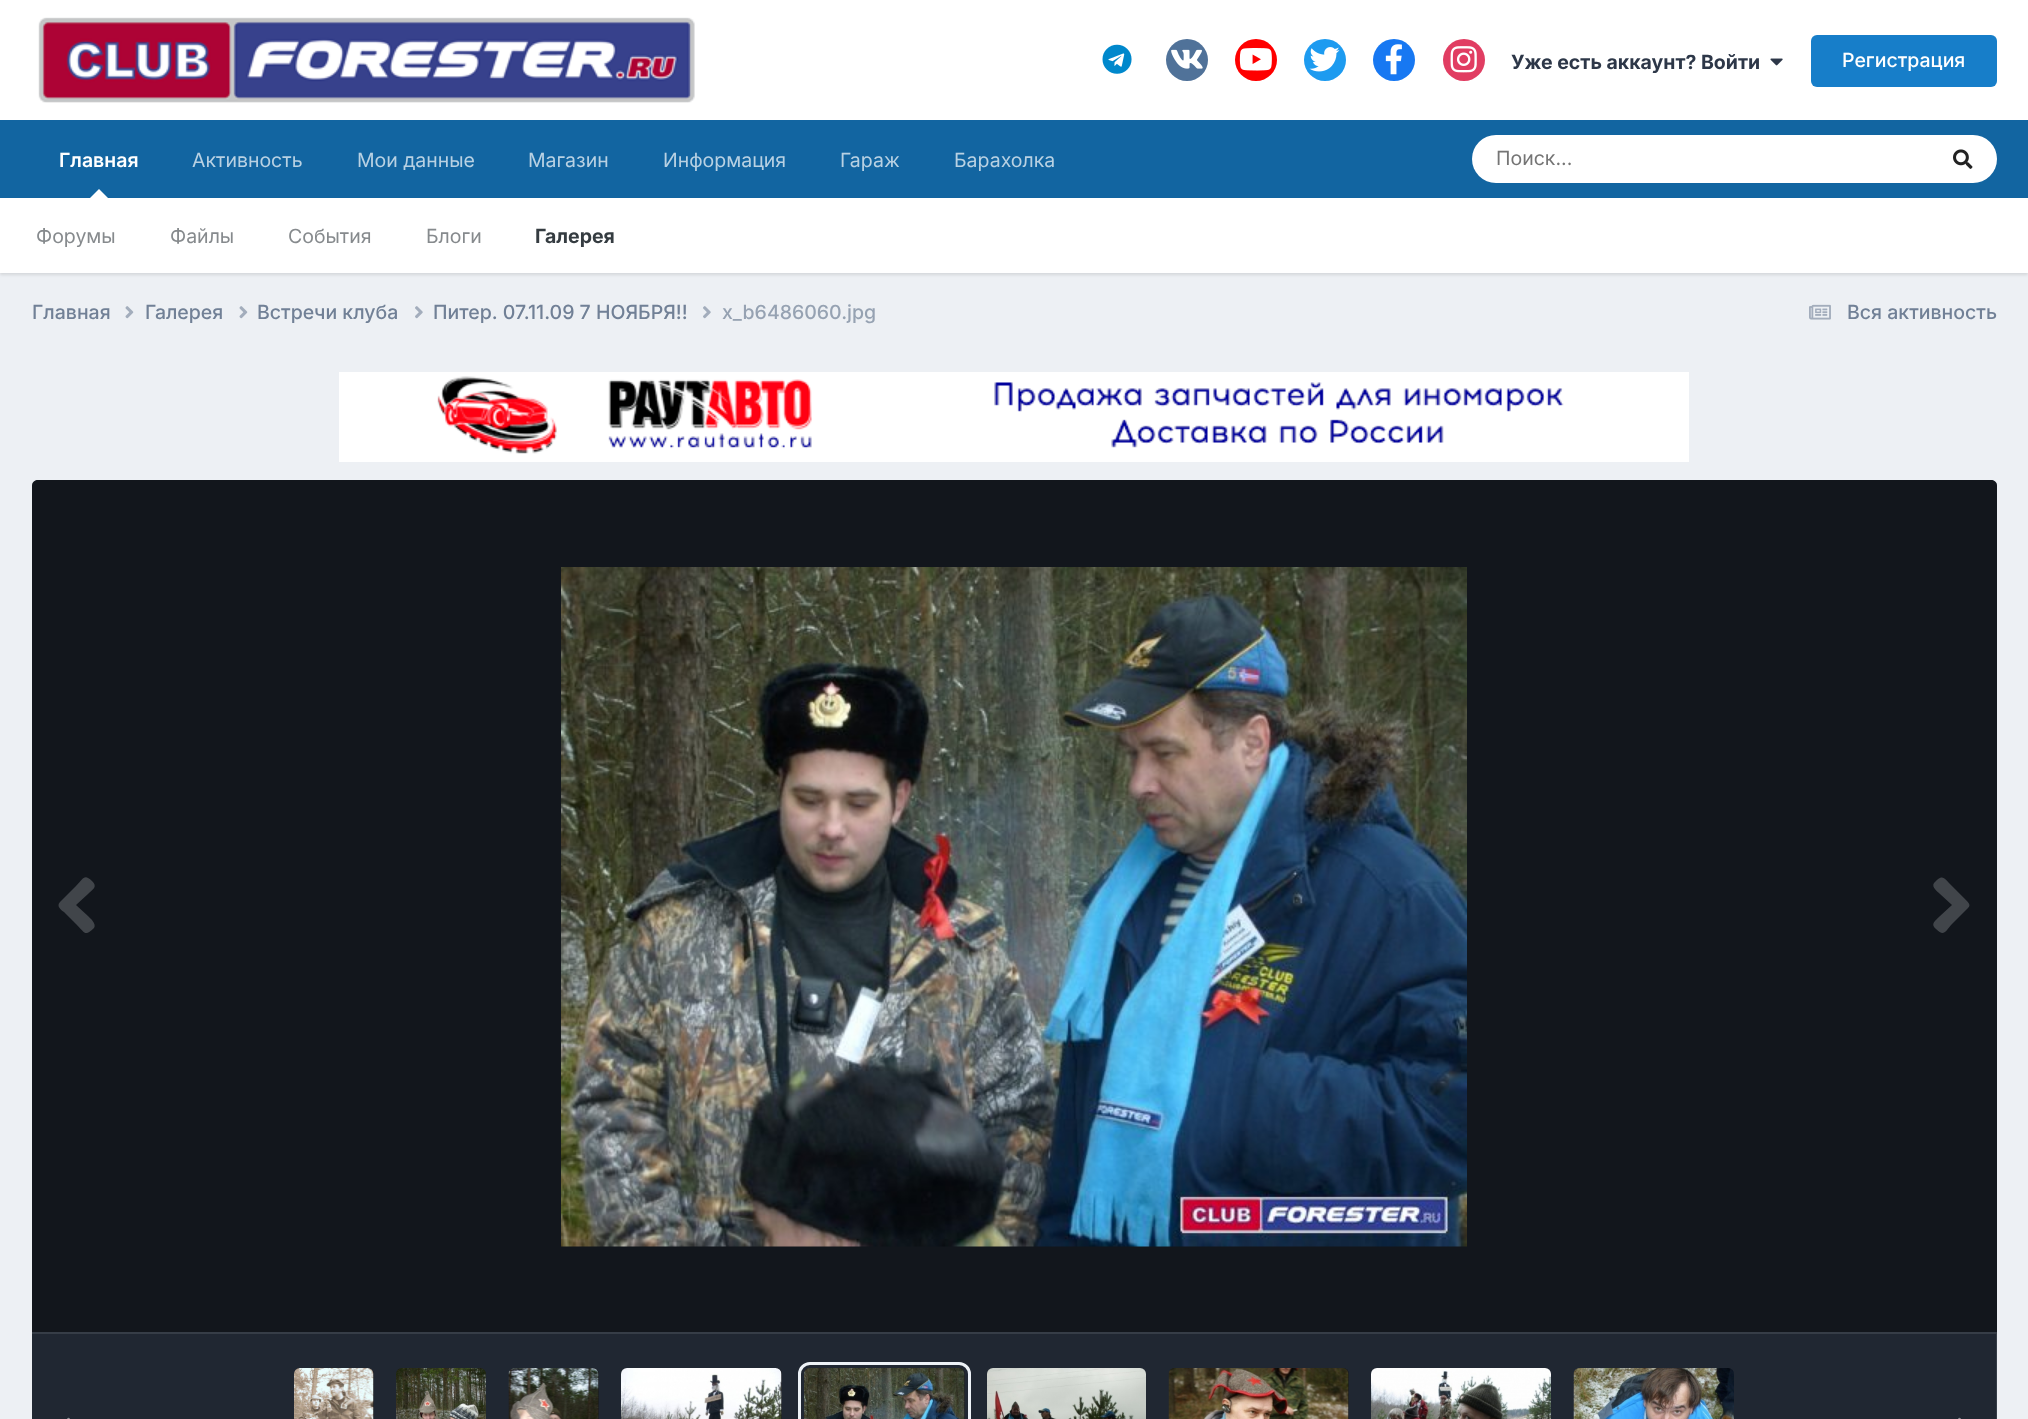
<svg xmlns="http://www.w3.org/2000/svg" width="2028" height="1419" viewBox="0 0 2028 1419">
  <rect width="100%" height="100%" fill="rgb(237,240,244)"/>
  <rect x="0" y="0" width="2028" height="120" fill="rgb(255,255,255)"/>
  <image x="38" y="17" width="657" height="86" href="pic1.png"/>
  <image x="1102" y="44" width="30" height="30" href="pic2.png"/>
  <circle cx="1187" cy="60" r="21" fill="rgb(80,114,153)"/>
  <image x="1171" y="49" width="32" height="20" href="pic3.png"/>
  <circle cx="1256" cy="60" r="21" fill="rgb(255,0,0)"/>
  <image x="1239" y="48" width="33" height="23" href="pic4.png"/>
  <circle cx="1325" cy="60" r="21" fill="rgb(29,155,240)"/>
  <image x="1309" y="47" width="31" height="25" href="pic5.png"/>
  <circle cx="1394" cy="60" r="21" fill="rgb(23,120,242)"/>
  <image x="1385" y="44" width="17" height="31" href="pic6.png"/>
  <circle cx="1464" cy="60" r="21" fill="rgb(225,61,98)"/>
  <image x="1450" y="46" width="27" height="27" href="pic7.png"/>
  <text x="1511" y="69" font-family="Inter" font-size="19.5" font-weight="bold" fill="rgb(45,55,72)">Уже есть аккаунт? Войти</text>
  <image x="1770" y="58" width="13" height="8" href="pic8.png"/>
  <rect x="1811" y="35" width="186" height="52" rx="6" fill="rgb(23,126,201)"/>
  <text x="1842" y="67" font-family="Inter" font-size="19.5" font-weight="500" fill="rgb(255,255,255)">Регистрация</text>
  <rect x="0" y="120" width="2028" height="78" fill="rgb(18,101,161)"/>
  <text x="59" y="167" font-family="Inter" font-size="19.5" font-weight="600" fill="rgb(255,255,255)">Главная</text>
  <rect x="0" y="200" width="2028" height="75" fill="rgba(0,0,0,0.1)" filter="blur(1.5px)"/>
  <path d="M108 198H90L99 189Z" fill="rgb(255,255,255)"/>
  <rect x="0" y="198" width="2028" height="75" fill="rgb(255,255,255)"/>
  <g font-family="Inter" font-size="19.5" fill="rgb(134,138,141)">
    <text x="36" y="243">Форумы</text>
    <text x="170" y="243">Файлы</text>
    <text x="288" y="243">События</text>
    <text x="426" y="243">Блоги</text>
  </g>
  <text x="535" y="243" font-family="Inter" font-size="19.5" font-weight="bold" fill="rgb(53,60,65)">Галерея</text>
  <g font-family="Inter" font-size="19.5" fill="rgb(184,209,227)">
    <text x="192" y="167">Активность</text>
    <text x="357" y="167">Мои данные</text>
    <text x="528" y="167">Магазин</text>
    <text x="663" y="167">Информация</text>
    <text x="840" y="167">Гараж</text>
    <text x="954" y="167">Барахолка</text>
  </g>
  <rect x="1472" y="135" width="525" height="48" rx="24" fill="rgb(255,255,255)"/>
  <text x="1496" y="165" font-family="Inter" font-size="19.5" fill="rgb(117,117,117)">Поиск...</text>
  <image x="1953" y="149" width="20" height="20" href="pic9.png"/>
  <text x="32" y="319" font-family="Inter" font-size="19.5" font-weight="500" fill="rgb(113,128,150)">Главная</text>
  <image x="125" y="306" width="9" height="13" href="pic10.png"/>
  <text x="145" y="319" font-family="Inter" font-size="19.5" font-weight="500" fill="rgb(113,128,150)">Галерея</text>
  <image x="239" y="306" width="9" height="13" href="pic10.png"/>
  <text x="257" y="319" font-family="Inter" font-size="19.5" font-weight="500" fill="rgb(113,128,150)">Встречи клуба</text>
  <image x="415" y="306" width="8" height="13" href="pic11.png"/>
  <text x="433" y="319" font-family="Inter" font-size="19.5" font-weight="500" fill="rgb(113,128,150)">Питер. 07.11.09 7 НОЯБРЯ!!</text>
  <image x="703" y="306" width="8" height="13" href="pic11.png"/>
  <text x="722" y="319" font-family="Inter" font-size="19.5" font-weight="500" fill="rgb(150,162,178)">x_b6486060.jpg</text>
  <image x="1809" y="304" width="22" height="16" href="pic12.png"/>
  <text x="1847" y="319" font-family="Inter" font-size="19.5" font-weight="500" fill="rgb(113,128,150)">Вся активность</text>
  <image x="339" y="372" width="1350" height="90" href="pic13.png"/>
  <path d="M38 480H1991C1994.5 480 1997 482.5 1997 486V1332H32V486C32 482.5 34.5 480 38 480Z" fill="rgb(45,55,72)"/>
  <path d="M38 480H1991C1994.5 480 1997 482.5 1997 486V1332H32V486C32 482.5 34.5 480 38 480Z" fill="rgba(0,0,0,0.6)"/>
  <image x="561" y="567" width="906" height="680" href="pic14.png"/>
  <path d="M60 902L76 886C83 879 84 873 92 881C98 887 93 889 88 894L76 905L88 916C90 918 97 924 94 928C85 937 85 933 76 924L64 912C61 910 56 906 60 902Z" fill="rgb(65,69,74)"/>
  <path d="M1968 908L1952 924C1945 932 1944 937 1936 929C1930 924 1935 921 1940 916L1952 905L1940 894C1938 892 1931 887 1934 883C1943 873 1944 878 1952 886L1964 898C1967 901 1972 905 1968 908Z" fill="rgb(65,69,74)"/>
  <rect x="32" y="1334" width="1964" height="85" fill="rgb(32,39,50)"/>
  <path d="M32 1334H1996V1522C1997 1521 1997 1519 1997 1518V1332H32Z" fill="rgb(54,61,71)"/>
  <rect x="294" y="1368" width="80" height="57" rx="6" fill="rgb(20,20,20)"/>
  <rect x="294" y="1368" width="80" height="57" rx="6" fill="rgba(45,55,72,0.3)"/>
  <image x="294" y="1368" width="80" height="51" href="pic15.png"/>
  <image x="396" y="1368" width="90" height="51" href="pic16.png"/>
  <rect x="509" y="1368" width="90" height="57" rx="6" fill="rgb(20,20,20)"/>
  <rect x="509" y="1368" width="90" height="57" rx="6" fill="rgba(45,55,72,0.3)"/>
  <image x="508" y="1368" width="91" height="51" href="pic17.png"/>
  <rect x="621" y="1368" width="161" height="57" rx="6" fill="rgb(20,20,20)"/>
  <rect x="621" y="1368" width="161" height="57" rx="6" fill="rgba(45,55,72,0.3)"/>
  <image x="621" y="1368" width="161" height="51" href="pic18.png"/>
  <rect x="804" y="1368" width="161" height="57" rx="6" fill="rgb(20,20,20)"/>
  <rect x="804" y="1368" width="161" height="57" rx="6" fill="rgba(45,55,72,0.3)"/>
  <rect x="799.5" y="1363.5" width="170" height="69" rx="10.5" fill="none" stroke="rgb(237,242,247)" stroke-width="3"/>
  <image x="804" y="1368" width="161" height="51" href="pic19.png"/>
  <image x="987" y="1368" width="159" height="51" href="pic20.png"/>
  <rect x="1169" y="1368" width="180" height="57" rx="6" fill="rgb(20,20,20)"/>
  <rect x="1169" y="1368" width="180" height="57" rx="6" fill="rgba(45,55,72,0.3)"/>
  <image x="1168" y="1368" width="181" height="51" href="pic21.png"/>
  <image x="1371" y="1368" width="180" height="51" href="pic22.png"/>
  <image x="1573" y="1368" width="161" height="51" href="pic23.png"/>
  <image x="67" y="1417" width="3" height="2" href="pic24.png"/>
  <image x="1958" y="1417" width="3" height="2" href="pic25.png"/>
</svg>
